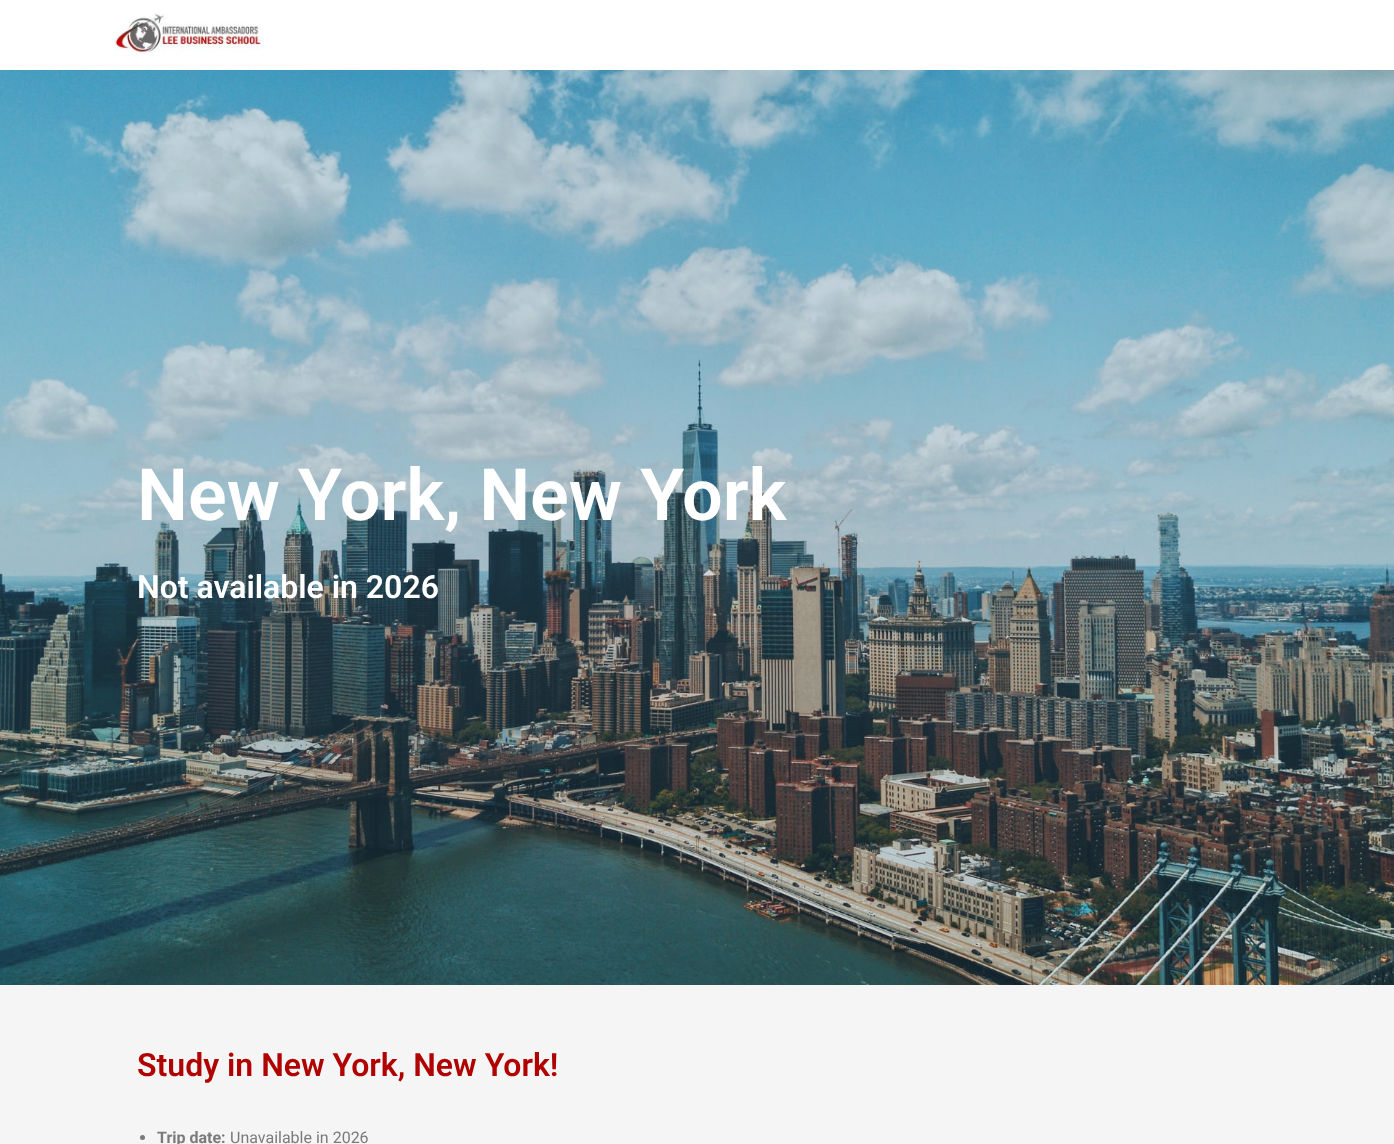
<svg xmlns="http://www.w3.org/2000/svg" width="1394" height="1144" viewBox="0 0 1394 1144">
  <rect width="100%" height="100%" fill="rgb(245,245,245)"/>
  <rect x="0" y="0" width="1394" height="70" fill="rgb(255,255,255)"/>
  <image x="114" y="13" width="150" height="42" href="pic1.png"/>
  <image x="0" y="70" width="1394" height="915" href="pic2.png"/>
  <text x="137" y="520" font-family="Roboto" font-size="72" font-weight="600" fill="rgb(255,255,255)">New York, New York</text>
  <text x="137" y="598" font-family="Roboto" font-size="32" font-weight="600" fill="rgb(255,255,255)">Not available in 2026</text>
  <text x="137" y="1076" font-family="Roboto" font-size="32" font-weight="600" fill="rgb(177,2,2)">Study in New York, New York!</text>
  <circle cx="142.5" cy="1137.5" r="2.5" fill="rgb(122,122,122)"/>
  <text x="157" y="1143" font-family="Roboto" font-size="16" font-weight="bold" fill="rgb(122,122,122)">Trip date:</text>
  <text x="230" y="1143" font-family="Roboto" font-size="16" fill="rgb(122,122,122)">Unavailable in 2026</text>
</svg>
